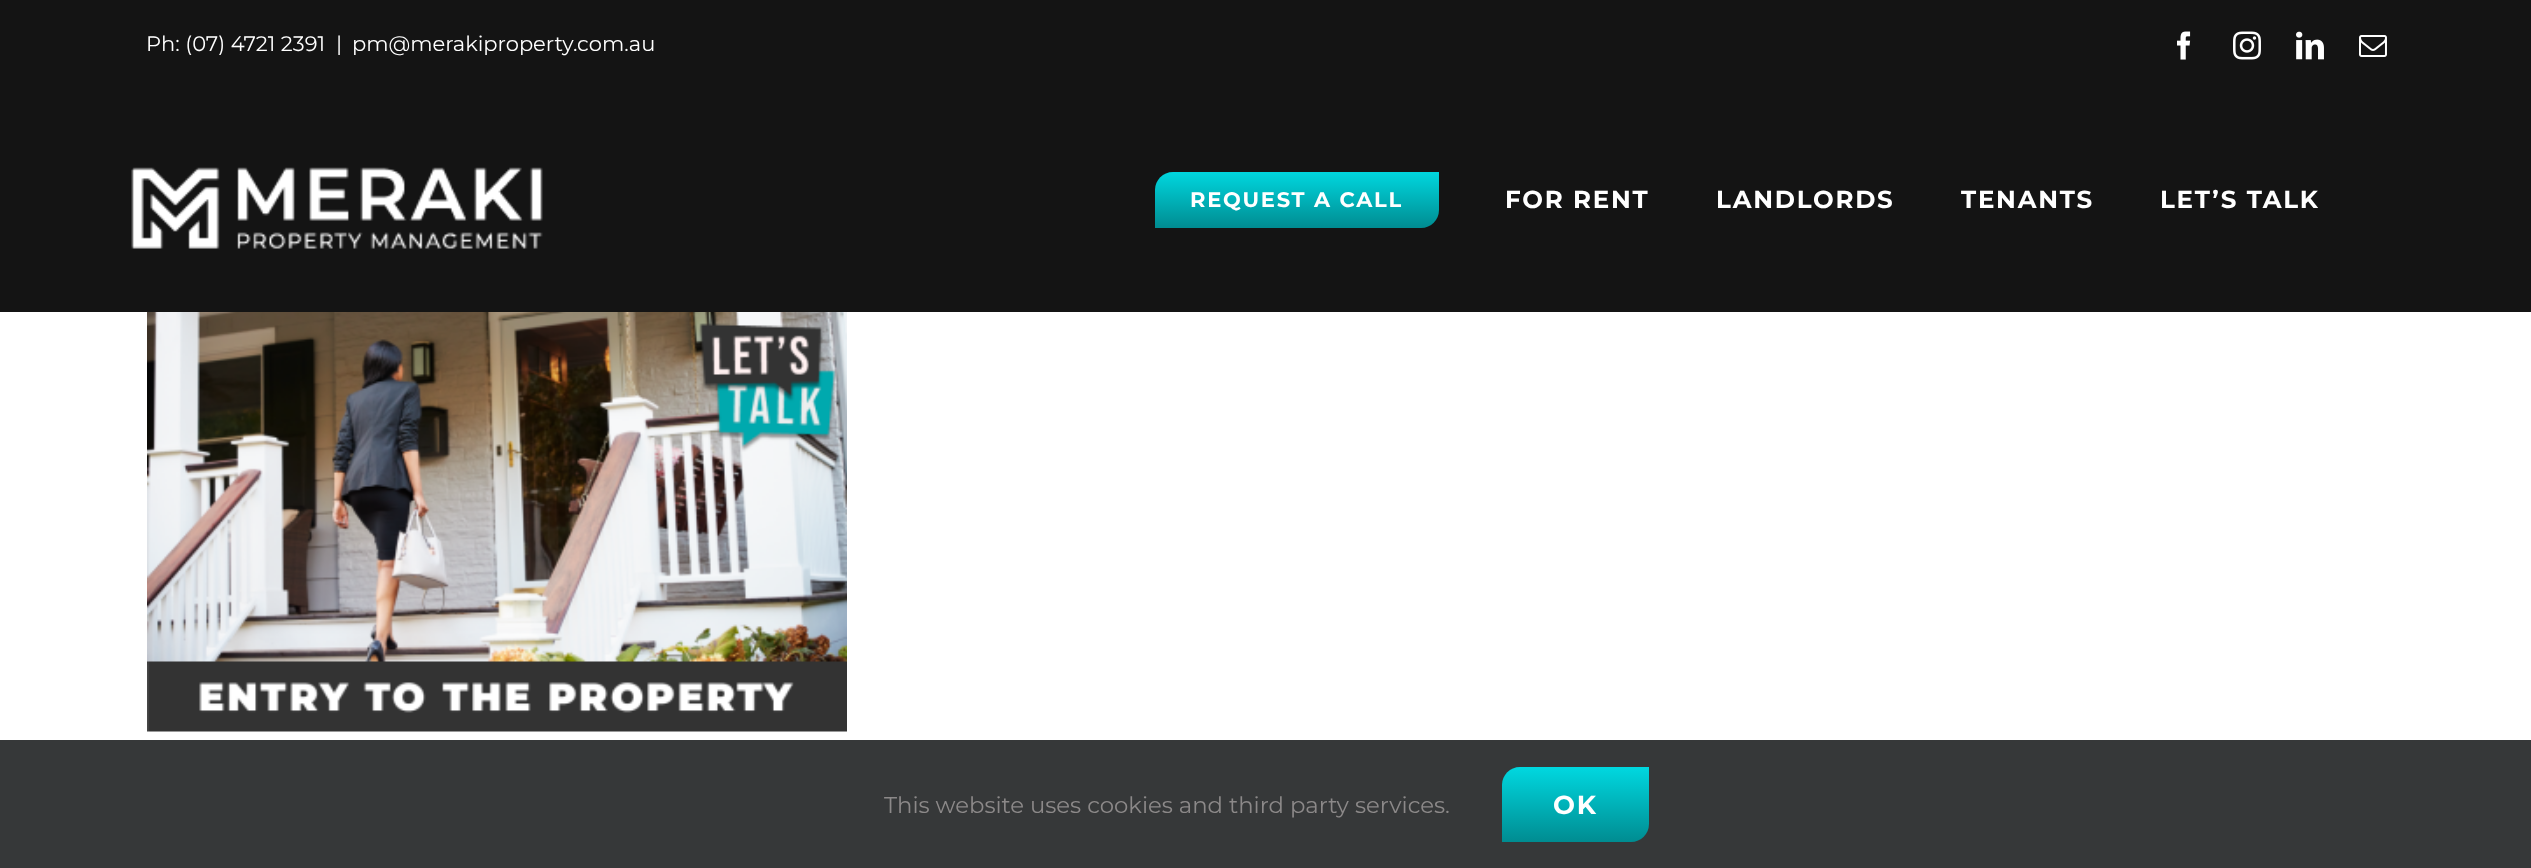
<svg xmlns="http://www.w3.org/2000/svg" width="2531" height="868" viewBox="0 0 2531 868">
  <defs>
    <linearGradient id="g1" gradientUnits="userSpaceOnUse" x1="1297" y1="171" x2="1297" y2="228"><stop offset="0" stop-color="rgb(0,216,224)"/><stop offset="1" stop-color="rgb(0,140,145)"/></linearGradient>
    <linearGradient id="g2" gradientUnits="userSpaceOnUse" x1="1575" y1="767" x2="1575" y2="842"><stop offset="0" stop-color="rgb(0,216,224)"/><stop offset="1" stop-color="rgb(0,140,145)"/></linearGradient>
  </defs>
  <rect width="100%" height="100%" fill="rgb(255,255,255)"/>
  <rect x="0" y="0" width="2531" height="312" fill="rgb(20,20,20)"/>
  <g font-family="Montserrat" font-size="21" fill="rgb(255,255,255)">
    <text x="146" y="51">Ph: (07) 4721 2391</text>
    <text x="336" y="51">|</text>
    <text x="352" y="51">pm@merakiproperty.com.au</text>
  </g>
  <image x="2177" y="31" width="14" height="29" href="pic1.png"/>
  <image x="2233" y="31" width="28" height="29" href="pic2.png"/>
  <image x="2296" y="31" width="28" height="29" href="pic3.png"/>
  <image x="2359" y="35" width="28" height="22" href="pic4.png"/>
  <image x="131" y="167" width="412" height="82" href="pic5.png"/>
  <path d="M1173 172H1439V210C1439 220 1431 228 1421 228H1155V190C1155 180 1163 172 1173 172Z" fill="url(#g1)"/>
  <text x="1190" y="207" font-family="Montserrat" font-size="21" font-weight="bold" letter-spacing="1.75" fill="rgb(255,255,255)">REQUEST A CALL</text>
  <g font-family="Montserrat" font-size="24.5" font-weight="bold" letter-spacing="1.75" fill="rgb(255,255,255)">
    <text x="1505" y="208">FOR RENT</text>
    <text x="1716" y="208">LANDLORDS</text>
    <text x="1961" y="208">TENANTS</text>
    <text x="2160" y="208">LET’S TALK</text>
  </g>
  <image x="147" y="312" width="700" height="420" href="pic6.png"/>
  <rect x="0" y="740" width="2531" height="128" fill="rgb(54,56,57)"/>
  <text x="884" y="813" font-family="Montserrat" font-size="22.75" fill="rgb(140,137,137)">This website uses cookies and third party services.</text>
  <path d="M1520 767H1649V824C1649 834 1641 842 1631 842H1502V785C1502 775 1510 767 1520 767Z" fill="url(#g2)"/>
  <text x="1553" y="814" font-family="Montserrat" font-size="26" font-weight="bold" letter-spacing="1.75" fill="rgb(255,255,255)">OK</text>
</svg>
